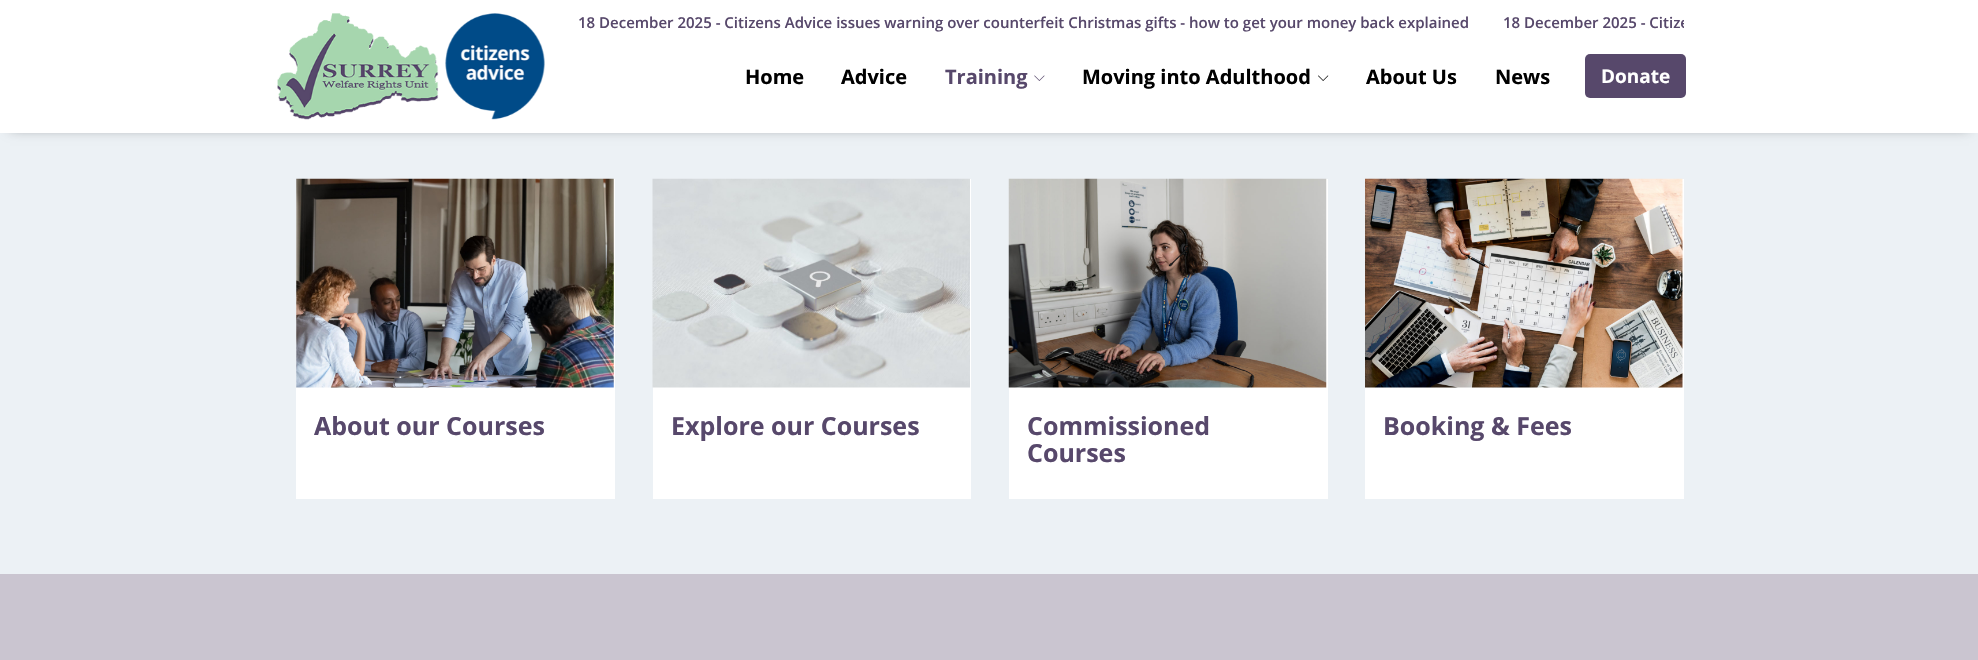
void draw(SkCanvas* canvas) {
    SkPaint paint;
    paint.setAntiAlias(true);
    canvas->clear(0xFFECF1F5);
    paint.setColor(0x73000000);
    paint.setMaskFilter(SkMaskFilter::MakeBlur(kNormal_SkBlurStyle, 6));
    canvas->drawRect(SkRect::MakeXYWH(10, 15, 1959, 113), paint);
    paint.setMaskFilter(nullptr);
    paint.setColor(0xFFFFFFFF);
    canvas->drawRect(SkRect::MakeXYWH(0, 0, 1978, 133), paint);
    canvas->drawImageRect(SkImages::DeferredFromEncodedData(SkData::MakeFromFileName("img1.png")), SkRect::MakeXYWH(277, 13, 268, 107), SkSamplingOptions());
    SkFont font1(fontMgr->matchFamilyStyle("Open Sans", SkFontStyle(600, SkFontStyle::kNormal_Width, SkFontStyle::kUpright_Slant)), 15);
    font1.setSubpixel(true);
    paint.setColor(0xFF57486B);
    canvas->drawString("18 December 2025 - Citizens Advice issues warning over counterfeit Christmas gifts - how to get your money back explained", 578, 28, font1, paint);
    canvas->save();
    canvas->clipRect(SkRect::MakeXYWH(548, 0, 1136, 45));
    canvas->drawString("18 December 2025 - Citize", 1503, 28, font1, paint);
    canvas->restore();
    SkFont font2(fontMgr->matchFamilyStyle("Open Sans", SkFontStyle::Bold()), 20);
    font2.setSubpixel(true);
    paint.setColor(0xFF000000);
    canvas->drawString("Home", 745, 84, font2, paint);
    canvas->drawString("Advice", 841, 84, font2, paint);
    paint.setColor(0xFF57486B);
    canvas->drawString("Training", 945, 84, font2, paint);
    canvas->drawImageRect(SkImages::DeferredFromEncodedData(SkData::MakeFromFileName("img2.png")), SkRect::MakeXYWH(1034, 75, 11, 6), SkSamplingOptions());
    paint.setColor(0xFF000000);
    canvas->drawString("Moving into Adulthood", 1082, 84, font2, paint);
    canvas->drawImageRect(SkImages::DeferredFromEncodedData(SkData::MakeFromFileName("img3.png")), SkRect::MakeXYWH(1318, 75, 11, 6), SkSamplingOptions());
    canvas->drawString("About Us", 1366, 84, font2, paint);
    canvas->drawString("News", 1495, 84, font2, paint);
    paint.setColor(0xFF57486B);
    canvas->drawRoundRect(SkRect::MakeXYWH(1585, 54, 101, 44), 5, 5, paint);
    SkFont font3(fontMgr->matchFamilyStyle("Open Sans", SkFontStyle::Bold()), 19);
    font3.setSubpixel(true);
    paint.setColor(0xFFFFFFFF);
    canvas->drawString("Donate", 1601, 83, font3, paint);
    canvas->drawRect(SkRect::MakeXYWH(296, 179, 319, 320), paint);
    canvas->drawImageRect(SkImages::DeferredFromEncodedData(SkData::MakeFromFileName("img4.png")), SkRect::MakeXYWH(296, 178, 318, 210), SkSamplingOptions());
    SkFont font4(fontMgr->matchFamilyStyle("Open Sans", SkFontStyle::Bold()), 25);
    font4.setSubpixel(true);
    paint.setColor(0xFF57486B);
    canvas->drawString("About our Courses", 314, 435, font4, paint);
    paint.setColor(0xFFFFFFFF);
    canvas->drawRect(SkRect::MakeXYWH(653, 179, 318, 320), paint);
    canvas->drawImageRect(SkImages::DeferredFromEncodedData(SkData::MakeFromFileName("img5.png")), SkRect::MakeXYWH(652, 178, 318, 210), SkSamplingOptions());
    paint.setColor(0xFF57486B);
    canvas->drawString("Explore our Courses", 671, 435, font4, paint);
    paint.setColor(0xFFFFFFFF);
    canvas->drawRect(SkRect::MakeXYWH(1009, 179, 319, 320), paint);
    canvas->drawImageRect(SkImages::DeferredFromEncodedData(SkData::MakeFromFileName("img6.png")), SkRect::MakeXYWH(1008, 178, 319, 210), SkSamplingOptions());
    paint.setColor(0xFF57486B);
    canvas->drawString("Commissioned", 1027, 435, font4, paint);
    canvas->drawString("Courses", 1027, 462, font4, paint);
    paint.setColor(0xFFFFFFFF);
    canvas->drawRect(SkRect::MakeXYWH(1365, 179, 319, 320), paint);
    canvas->drawImageRect(SkImages::DeferredFromEncodedData(SkData::MakeFromFileName("img7.png")), SkRect::MakeXYWH(1365, 178, 318, 210), SkSamplingOptions());
    paint.setColor(0xFF57486B);
    canvas->drawString("Booking & Fees", 1383, 435, font4, paint);
    paint.setColor(0xFFCAC5D0);
    canvas->drawRect(SkRect::MakeXYWH(0, 574, 1978, 86), paint);
}
